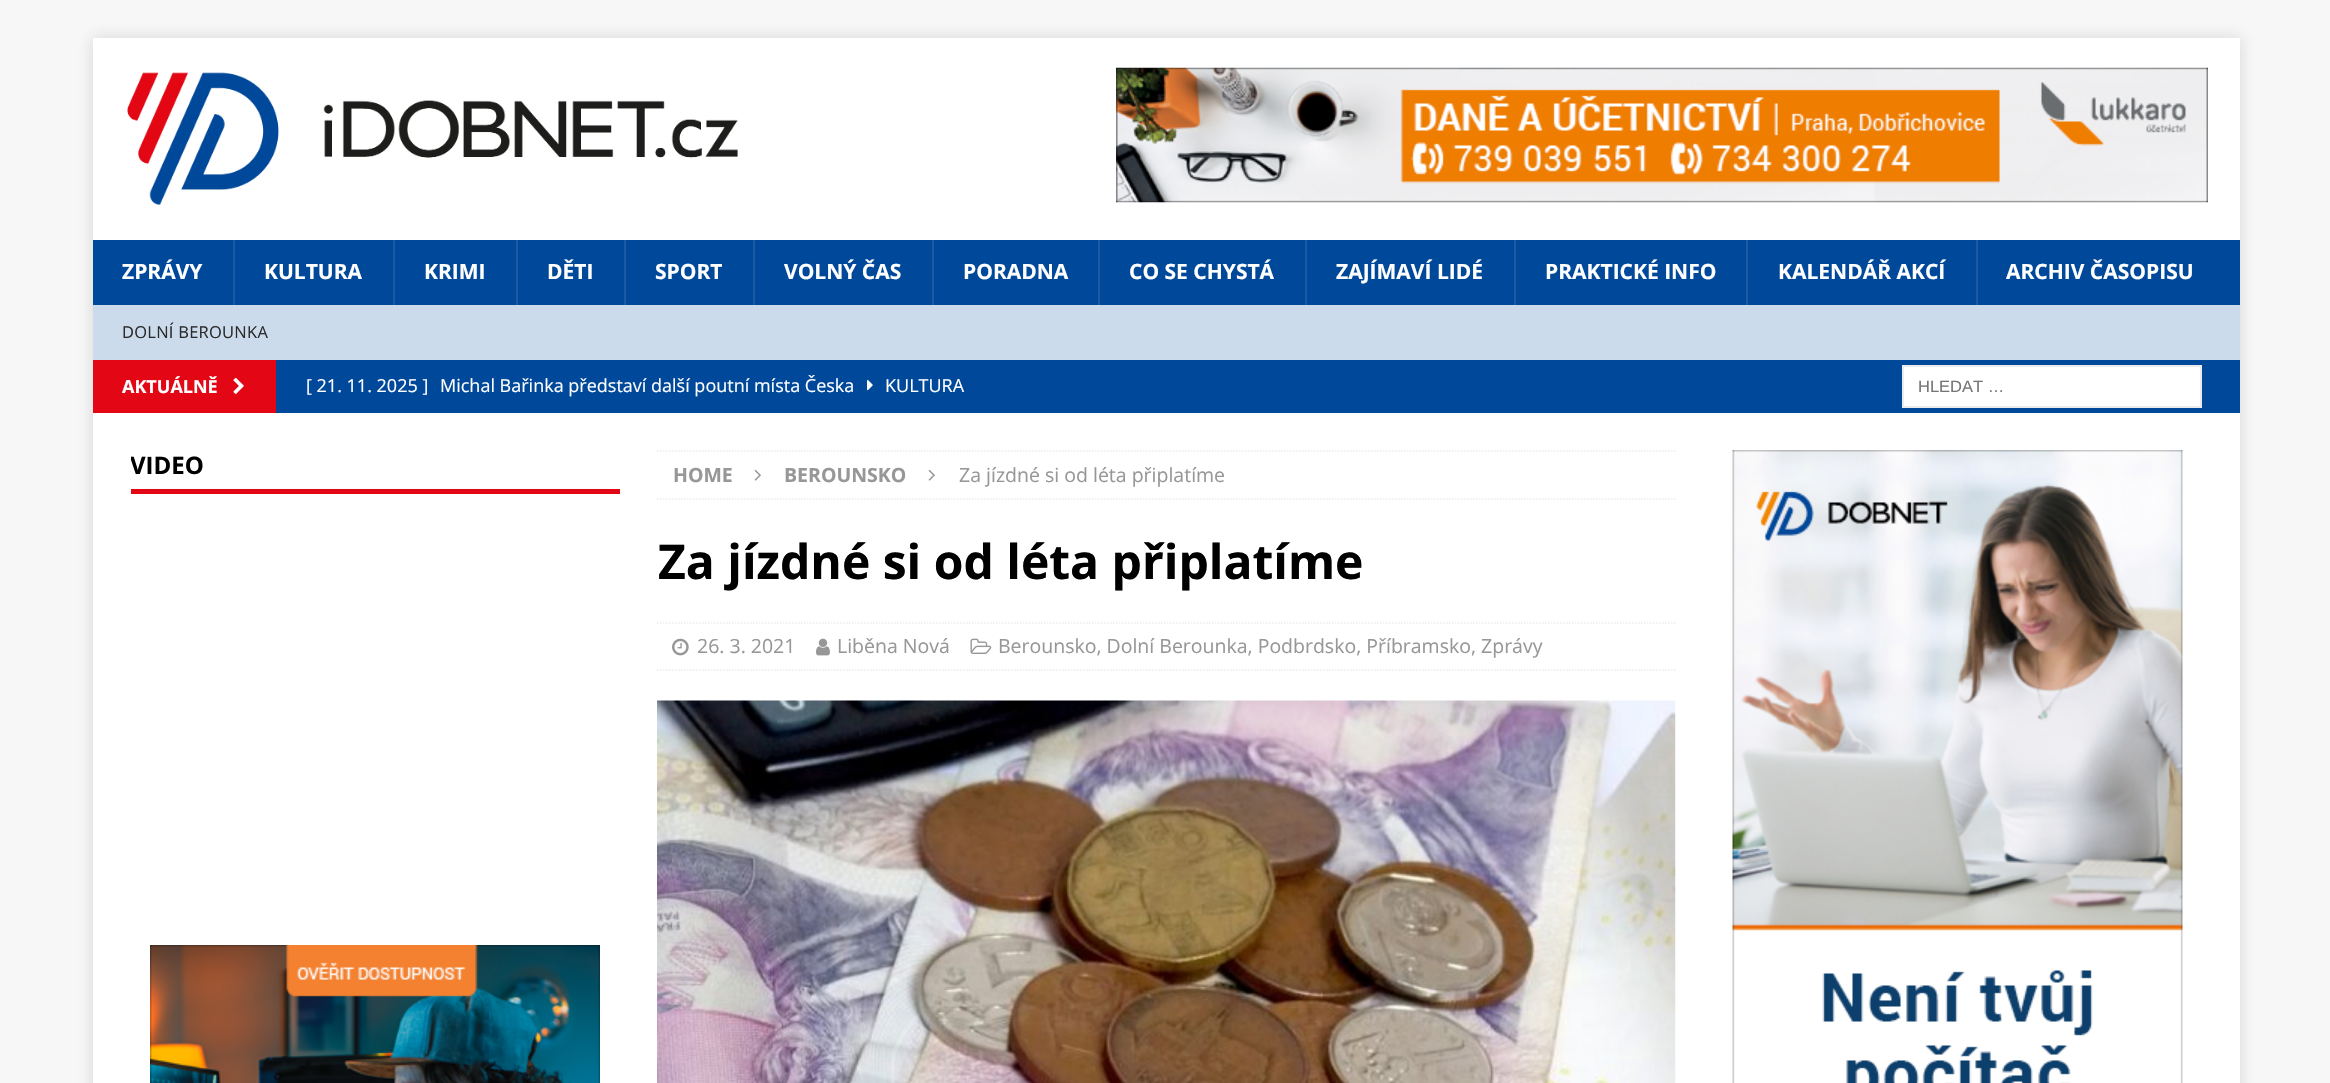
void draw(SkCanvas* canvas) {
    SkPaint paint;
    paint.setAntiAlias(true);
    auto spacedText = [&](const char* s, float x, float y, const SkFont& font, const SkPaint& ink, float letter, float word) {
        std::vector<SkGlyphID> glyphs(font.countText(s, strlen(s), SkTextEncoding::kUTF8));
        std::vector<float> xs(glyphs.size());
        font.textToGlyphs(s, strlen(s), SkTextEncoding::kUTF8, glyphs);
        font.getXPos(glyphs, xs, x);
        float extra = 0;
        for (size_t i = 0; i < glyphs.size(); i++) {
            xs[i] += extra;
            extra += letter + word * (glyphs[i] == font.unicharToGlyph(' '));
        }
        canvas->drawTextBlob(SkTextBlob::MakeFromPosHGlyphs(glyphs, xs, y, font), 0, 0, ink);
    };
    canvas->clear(0xFFF7F7F7);
    paint.setColor(0x2B323232);
    paint.setMaskFilter(SkMaskFilter::MakeBlur(kNormal_SkBlurStyle, 7.5f));
    canvas->drawRect(SkRect::MakeXYWH(93, 38, 2147, 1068), paint);
    paint.setMaskFilter(nullptr);
    paint.setColor(0xFFFFFFFF);
    canvas->drawRect(SkRect::MakeXYWH(93, 38, 2147, 202), paint);
    canvas->drawImageRect(SkImages::DeferredFromEncodedData(SkData::MakeFromFileName("img1.png")), SkRect::MakeXYWH(127, 72, 611, 133), SkSamplingOptions());
    canvas->drawImageRect(SkImages::DeferredFromEncodedData(SkData::MakeFromFileName("img2.png")), SkRect::MakeXYWH(1116, 67, 1092, 136), SkSamplingOptions());
    paint.setColor(0xFF004899);
    canvas->drawRect(SkRect::MakeXYWH(93, 240, 2147, 65), paint);
    SkFont font1(fontMgr->matchFamilyStyle("Open Sans", SkFontStyle::Bold()), 21);
    font1.setSubpixel(true);
    paint.setColor(0xFFFFFFFF);
    canvas->drawString("ZPRÁVY", 122, 279, font1, paint);
    paint.setColor(0xFF1A5AA3);
    canvas->drawRect(SkRect::MakeXYWH(233, 240, 2, 65), paint);
    paint.setColor(0xFFFFFFFF);
    canvas->drawString("KULTURA", 264, 279, font1, paint);
    paint.setColor(0xFF1A5AA3);
    canvas->drawRect(SkRect::MakeXYWH(393, 240, 2, 65), paint);
    paint.setColor(0xFFFFFFFF);
    canvas->drawString("KRIMI", 424, 279, font1, paint);
    paint.setColor(0xFF1A5AA3);
    canvas->drawRect(SkRect::MakeXYWH(516, 240, 2, 65), paint);
    paint.setColor(0xFFFFFFFF);
    canvas->drawString("DĚTI", 547, 279, font1, paint);
    paint.setColor(0xFF1A5AA3);
    canvas->drawRect(SkRect::MakeXYWH(624, 240, 2, 65), paint);
    paint.setColor(0xFFFFFFFF);
    canvas->drawString("SPORT", 655, 279, font1, paint);
    paint.setColor(0xFF1A5AA3);
    canvas->drawRect(SkRect::MakeXYWH(753, 240, 2, 65), paint);
    paint.setColor(0xFFFFFFFF);
    canvas->drawString("VOLNÝ ČAS", 784, 279, font1, paint);
    paint.setColor(0xFF1A5AA3);
    canvas->drawRect(SkRect::MakeXYWH(932, 240, 2, 65), paint);
    paint.setColor(0xFFFFFFFF);
    canvas->drawString("PORADNA", 963, 279, font1, paint);
    paint.setColor(0xFF1A5AA3);
    canvas->drawRect(SkRect::MakeXYWH(1098, 240, 2, 65), paint);
    paint.setColor(0xFFFFFFFF);
    canvas->drawString("CO SE CHYSTÁ", 1129, 279, font1, paint);
    paint.setColor(0xFF1A5AA3);
    canvas->drawRect(SkRect::MakeXYWH(1305, 240, 2, 65), paint);
    paint.setColor(0xFFFFFFFF);
    canvas->drawString("ZAJÍMAVÍ LIDÉ", 1336, 279, font1, paint);
    paint.setColor(0xFF1A5AA3);
    canvas->drawRect(SkRect::MakeXYWH(1514, 240, 2, 65), paint);
    paint.setColor(0xFFFFFFFF);
    canvas->drawString("PRAKTICKÉ INFO", 1545, 279, font1, paint);
    paint.setColor(0xFF1A5AA3);
    canvas->drawRect(SkRect::MakeXYWH(1746, 240, 2, 65), paint);
    paint.setColor(0xFFFFFFFF);
    canvas->drawString("KALENDÁŘ AKCÍ", 1778, 279, font1, paint);
    paint.setColor(0xFF1A5AA3);
    canvas->drawRect(SkRect::MakeXYWH(1976, 240, 2, 65), paint);
    paint.setColor(0xFFFFFFFF);
    canvas->drawString("ARCHIV ČASOPISU", 2006, 279, font1, paint);
    paint.setColor(0xFFCCDBEB);
    canvas->drawRect(SkRect::MakeXYWH(93, 305, 2147, 55), paint);
    SkFont font2(fontMgr->matchFamilyStyle("Open Sans", SkFontStyle::Normal()), 16.5f);
    font2.setSubpixel(true);
    paint.setColor(0xFF2A2A2A);
    spacedText("DOLNÍ BEROUNKA", 122, 338, font2, paint, 0.25f, 0);
    paint.setColor(0xFF004899);
    canvas->drawRect(SkRect::MakeXYWH(276, 360, 1964, 53), paint);
    paint.setColor(0xFFE30615);
    canvas->drawRect(SkRect::MakeXYWH(93, 360, 183, 53), paint);
    SkFont font3(fontMgr->matchFamilyStyle("Open Sans", SkFontStyle::Bold()), 18);
    font3.setSubpixel(true);
    paint.setColor(0xFFFFFFFF);
    canvas->drawString("AKTUÁLNĚ", 122, 393, font3, paint);
    canvas->drawImageRect(SkImages::DeferredFromEncodedData(SkData::MakeFromFileName("img3.png")), SkRect::MakeXYWH(233, 377, 11, 17), SkSamplingOptions());
    SkFont font4(fontMgr->matchFamilyStyle("Open Sans", SkFontStyle::Normal()), 18);
    font4.setSubpixel(true);
    canvas->drawString("[ 21. 11. 2025 ]", 306, 392, font4, paint);
    canvas->drawString("Michal Bařinka představí další poutní místa Česka", 440, 392, font4, paint);
    canvas->drawImageRect(SkImages::DeferredFromEncodedData(SkData::MakeFromFileName("img4.png")), SkRect::MakeXYWH(867, 380, 6, 11), SkSamplingOptions());
    canvas->drawString("KULTURA", 885, 392, font4, paint);
    canvas->drawRect(SkRect::MakeXYWH(1903, 366, 298, 41), paint);
    paint.setStyle(SkPaint::kStroke_Style);
    paint.setStrokeWidth(2);
    paint.setColor(0xFFEBEBEB);
    canvas->drawRect(SkRect::MakeXYWH(1903, 366, 298, 41), paint);
    SkFont font5(fontMgr->matchFamilyStyle("Liberation Sans", SkFontStyle::Normal()), 16.5f);
    font5.setSubpixel(true);
    paint.setStyle(SkPaint::kFill_Style);
    paint.setColor(0xFF757575);
    canvas->drawString("HLEDAT …", 1918, 392, font5, paint);
    paint.setColor(0xFFFFFFFF);
    canvas->drawRect(SkRect::MakeXYWH(93, 413, 2147, 670), paint);
    paint.setColor(0xFFE30615);
    canvas->drawRect(SkRect::MakeXYWH(131, 489, 489, 5), paint);
    canvas->save();
    canvas->clipRect(SkRect::MakeXYWH(131, 450, 489, 458));
    SkFont font6(fontMgr->matchFamilyStyle("Open Sans", SkFontStyle::Bold()), 24);
    font6.setSubpixel(true);
    paint.setColor(0xFF000000);
    canvas->drawString("VIDEO", 130, 474, font6, paint);
    canvas->restore();
    canvas->drawImageRect(SkImages::DeferredFromEncodedData(SkData::MakeFromFileName("img5.png")), SkRect::MakeXYWH(150, 945, 450, 138), SkSamplingOptions());
    paint.setStyle(SkPaint::kStroke_Style);
    paint.setStrokeWidth(1.5f);
    paint.setColor(0xFFEBEBEB);
    paint.setPathEffect(SkDashPathEffect::Make({{1.5f, 1.5f}}, 0));
    canvas->drawPath(SkPathBuilder().moveTo(657, 451).lineTo(1675.5f, 451).detach(), paint);
    paint.setPathEffect(nullptr);
    paint.setPathEffect(SkDashPathEffect::Make({{1.5f, 1.5f}}, 0));
    canvas->drawPath(SkPathBuilder().moveTo(657, 499).lineTo(1675.5f, 499).detach(), paint);
    paint.setPathEffect(nullptr);
    SkFont font7(fontMgr->matchFamilyStyle("Open Sans", SkFontStyle::Bold()), 19.5f);
    font7.setSubpixel(true);
    paint.setStyle(SkPaint::kFill_Style);
    paint.setColor(0xFF979797);
    canvas->drawString("HOME", 673, 482, font7, paint);
    canvas->drawImageRect(SkImages::DeferredFromEncodedData(SkData::MakeFromFileName("img6.png")), SkRect::MakeXYWH(754, 469, 7, 12), SkSamplingOptions());
    canvas->drawString("BEROUNSKO", 784, 482, font7, paint);
    canvas->drawImageRect(SkImages::DeferredFromEncodedData(SkData::MakeFromFileName("img6.png")), SkRect::MakeXYWH(928, 469, 7, 12), SkSamplingOptions());
    SkFont font8(fontMgr->matchFamilyStyle("Open Sans", SkFontStyle::Normal()), 19.5f);
    font8.setSubpixel(true);
    canvas->drawString("Za jízdné si od léta připlatíme", 959, 482, font8, paint);
    SkFont font9(fontMgr->matchFamilyStyle("Open Sans", SkFontStyle::Bold()), 48);
    font9.setSubpixel(true);
    paint.setColor(0xFF000000);
    canvas->drawString("Za jízdné si od léta připlatíme", 658, 579, font9, paint);
    paint.setStyle(SkPaint::kStroke_Style);
    paint.setColor(0xFFEBEBEB);
    paint.setPathEffect(SkDashPathEffect::Make({{1.5f, 1.5f}}, 0));
    canvas->drawPath(SkPathBuilder().moveTo(657, 623).lineTo(1675.5f, 623).detach(), paint);
    paint.setPathEffect(nullptr);
    paint.setPathEffect(SkDashPathEffect::Make({{1.5f, 1.5f}}, 0));
    canvas->drawPath(SkPathBuilder().moveTo(657, 670).lineTo(1675.5f, 670).detach(), paint);
    paint.setPathEffect(nullptr);
    canvas->drawImageRect(SkImages::DeferredFromEncodedData(SkData::MakeFromFileName("img7.png")), SkRect::MakeXYWH(672, 638, 17, 18), SkSamplingOptions());
    paint.setStyle(SkPaint::kFill_Style);
    paint.setColor(0xFF979797);
    canvas->drawString("26. 3. 2021", 697, 653, font8, paint);
    canvas->drawImageRect(SkImages::DeferredFromEncodedData(SkData::MakeFromFileName("img8.png")), SkRect::MakeXYWH(816, 638, 14, 18), SkSamplingOptions());
    canvas->drawString("Liběna Nová", 837, 653, font8, paint);
    canvas->drawImageRect(SkImages::DeferredFromEncodedData(SkData::MakeFromFileName("img9.png")), SkRect::MakeXYWH(970, 638, 22, 16), SkSamplingOptions());
    canvas->drawString("Berounsko, Dolní Berounka, Podbrdsko, Příbramsko, Zprávy", 998, 653, font8, paint);
    canvas->drawImageRect(SkImages::DeferredFromEncodedData(SkData::MakeFromFileName("img10.png")), SkRect::MakeXYWH(657, 700, 1019, 383), SkSamplingOptions());
    canvas->drawImageRect(SkImages::DeferredFromEncodedData(SkData::MakeFromFileName("img11.png")), SkRect::MakeXYWH(1732, 450, 451, 633), SkSamplingOptions());
}
